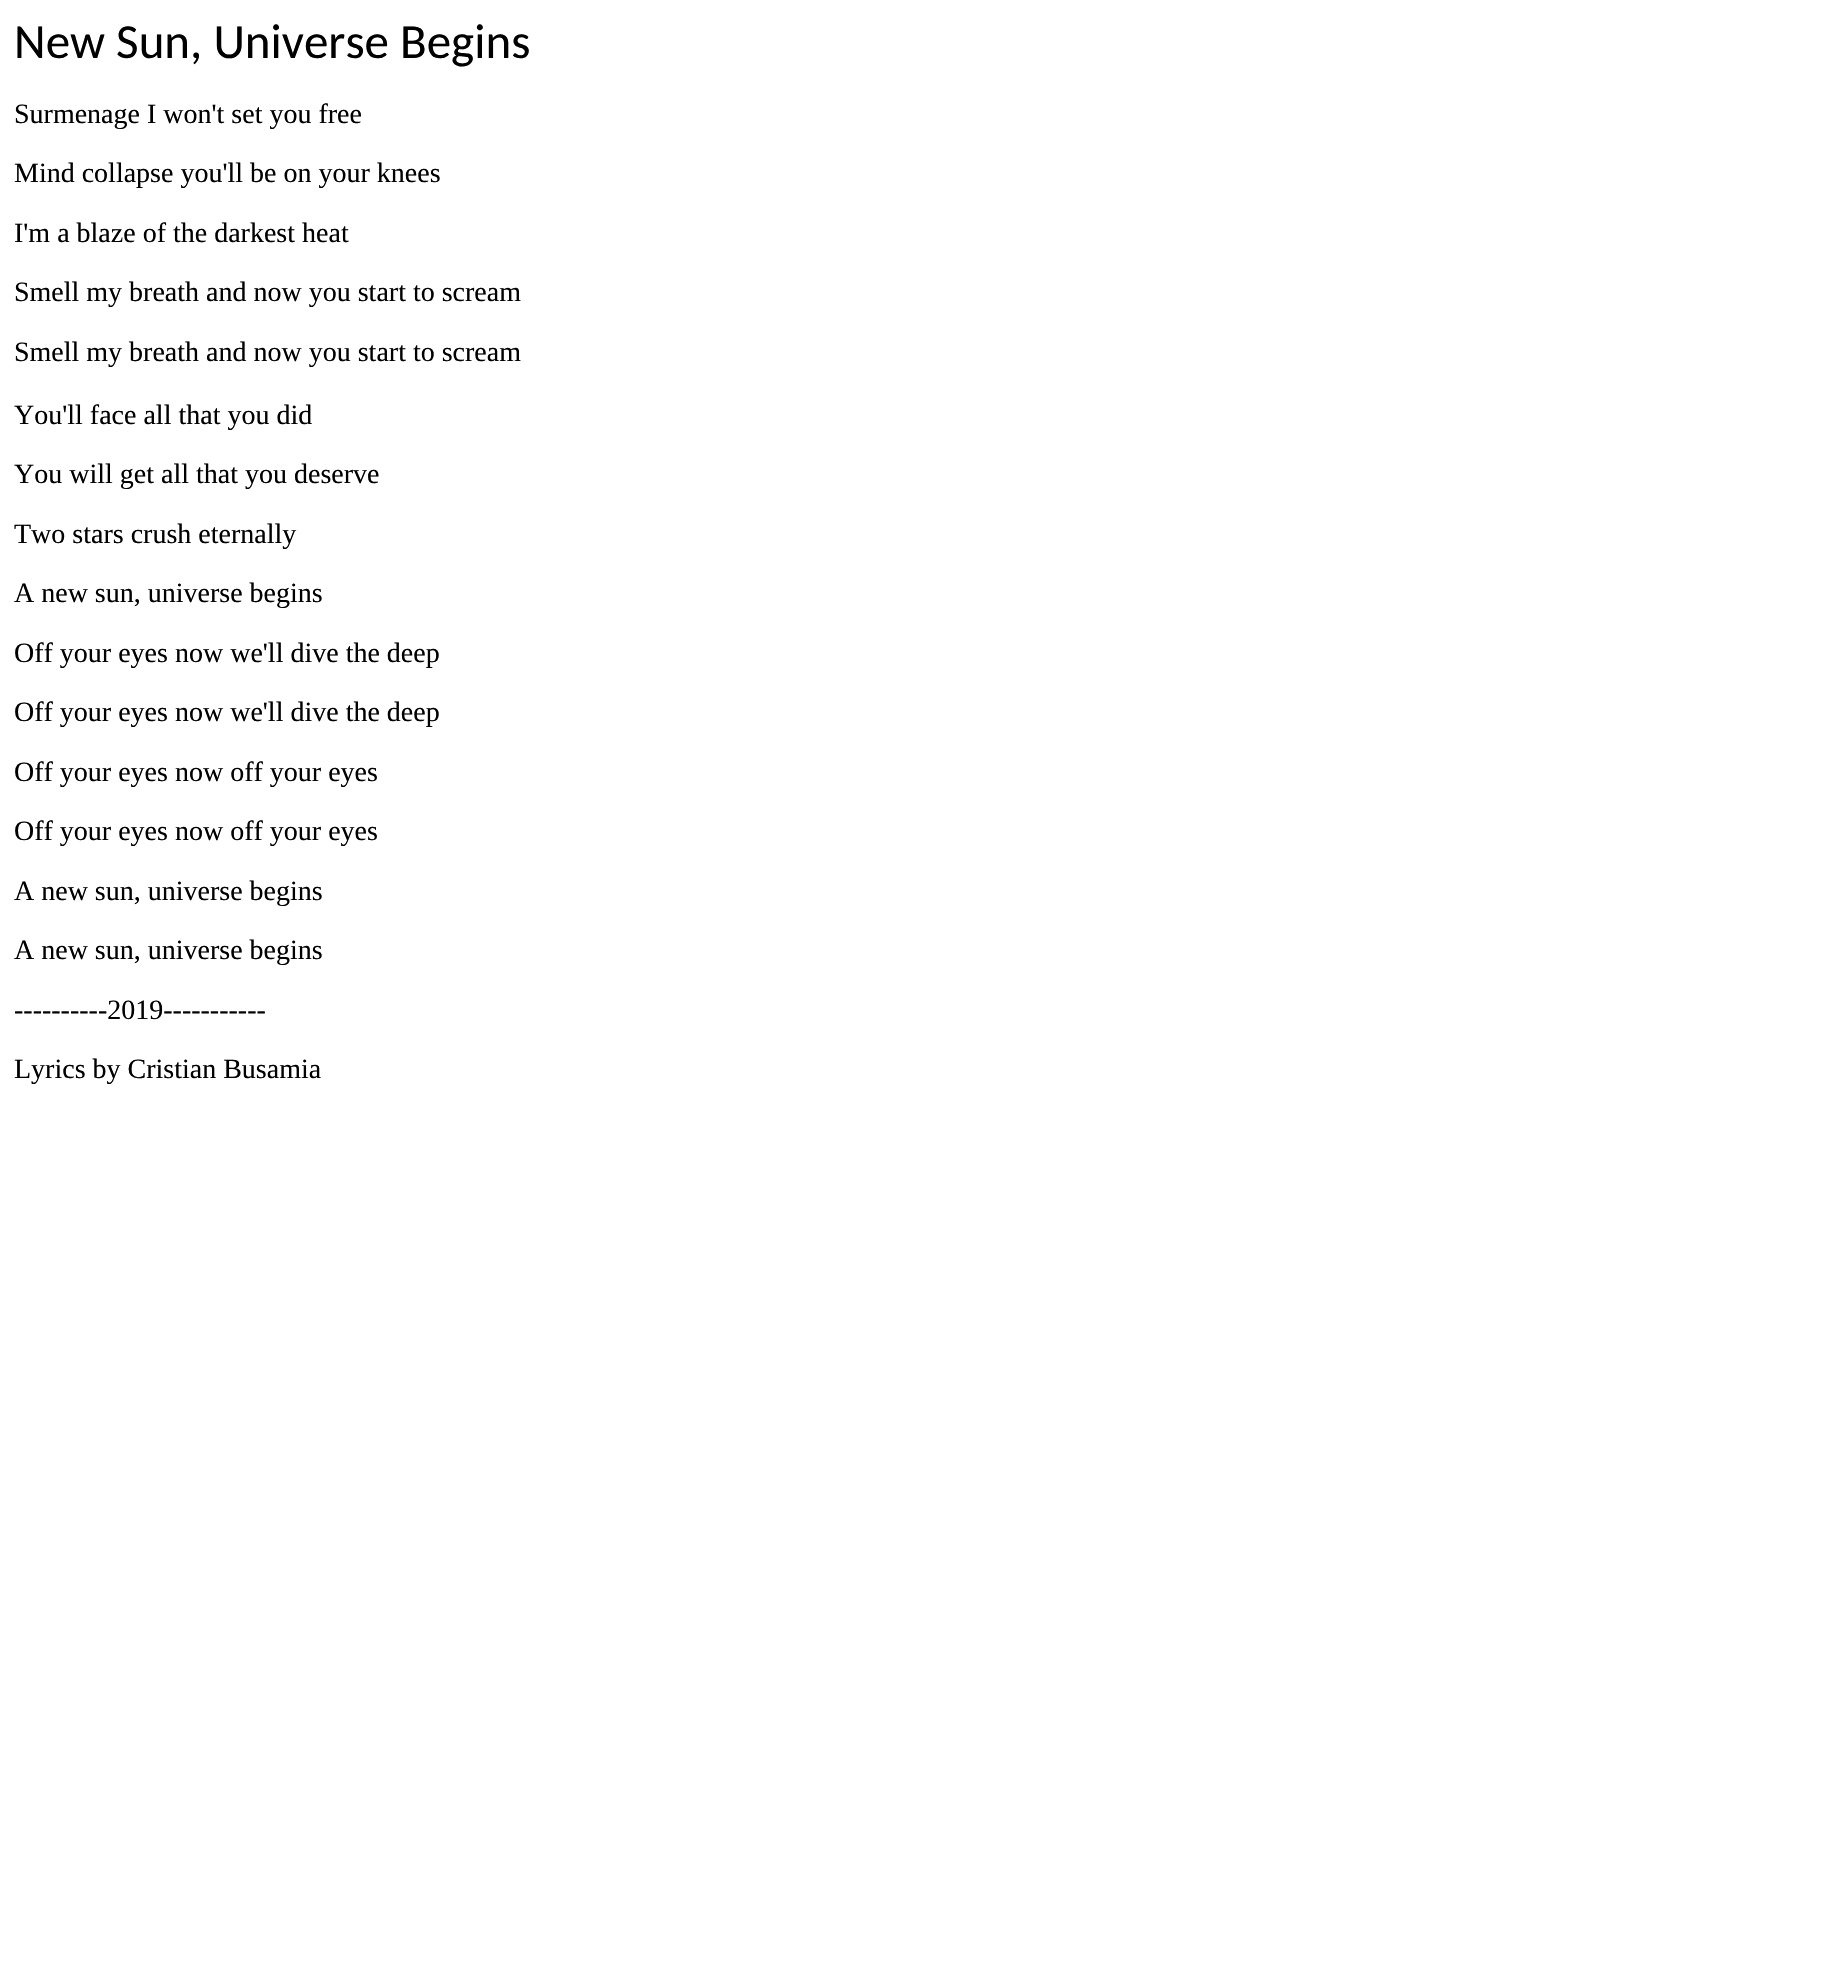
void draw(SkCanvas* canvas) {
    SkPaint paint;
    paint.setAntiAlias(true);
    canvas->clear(0xFFFFFFFF);
    SkFont font1(fontMgr->matchFamilyStyle("Carlito", SkFontStyle::Normal()), 49);
    font1.setSubpixel(true);
    paint.setColor(0xFF000000);
    canvas->drawString("New Sun, Universe Begins", 14, 58, font1, paint);
    SkFont font2(fontMgr->matchFamilyStyle("Liberation Serif", SkFontStyle::Normal()), 28);
    font2.setSubpixel(true);
    canvas->drawString("Surmenage I won't set you free", 14, 123, font2, paint);
    canvas->drawString("Mind collapse you'll be on your knees", 14, 182, font2, paint);
    canvas->drawString("I'm a blaze of the darkest heat", 14, 242, font2, paint);
    canvas->drawString("Smell my breath and now you start to scream", 14, 301, font2, paint);
    canvas->drawString("Smell my breath and now you start to scream", 14, 361, font2, paint);
    canvas->drawString("You'll face all that you did", 14, 424, font2, paint);
    canvas->drawString("You will get all that you deserve", 14, 483, font2, paint);
    canvas->drawString("Two stars crush eternally", 14, 543, font2, paint);
    canvas->drawString("A new sun, universe begins", 14, 602, font2, paint);
    canvas->drawString("Off your eyes now we'll dive the deep", 14, 662, font2, paint);
    canvas->drawString("Off your eyes now we'll dive the deep", 14, 721, font2, paint);
    canvas->drawString("Off your eyes now off your eyes", 14, 781, font2, paint);
    canvas->drawString("Off your eyes now off your eyes", 14, 840, font2, paint);
    canvas->drawString("A new sun, universe begins", 14, 900, font2, paint);
    canvas->drawString("A new sun, universe begins", 14, 959, font2, paint);
    canvas->drawString("----------2019-----------", 14, 1019, font2, paint);
    canvas->drawString("Lyrics by Cristian Busamia", 14, 1078, font2, paint);
}
